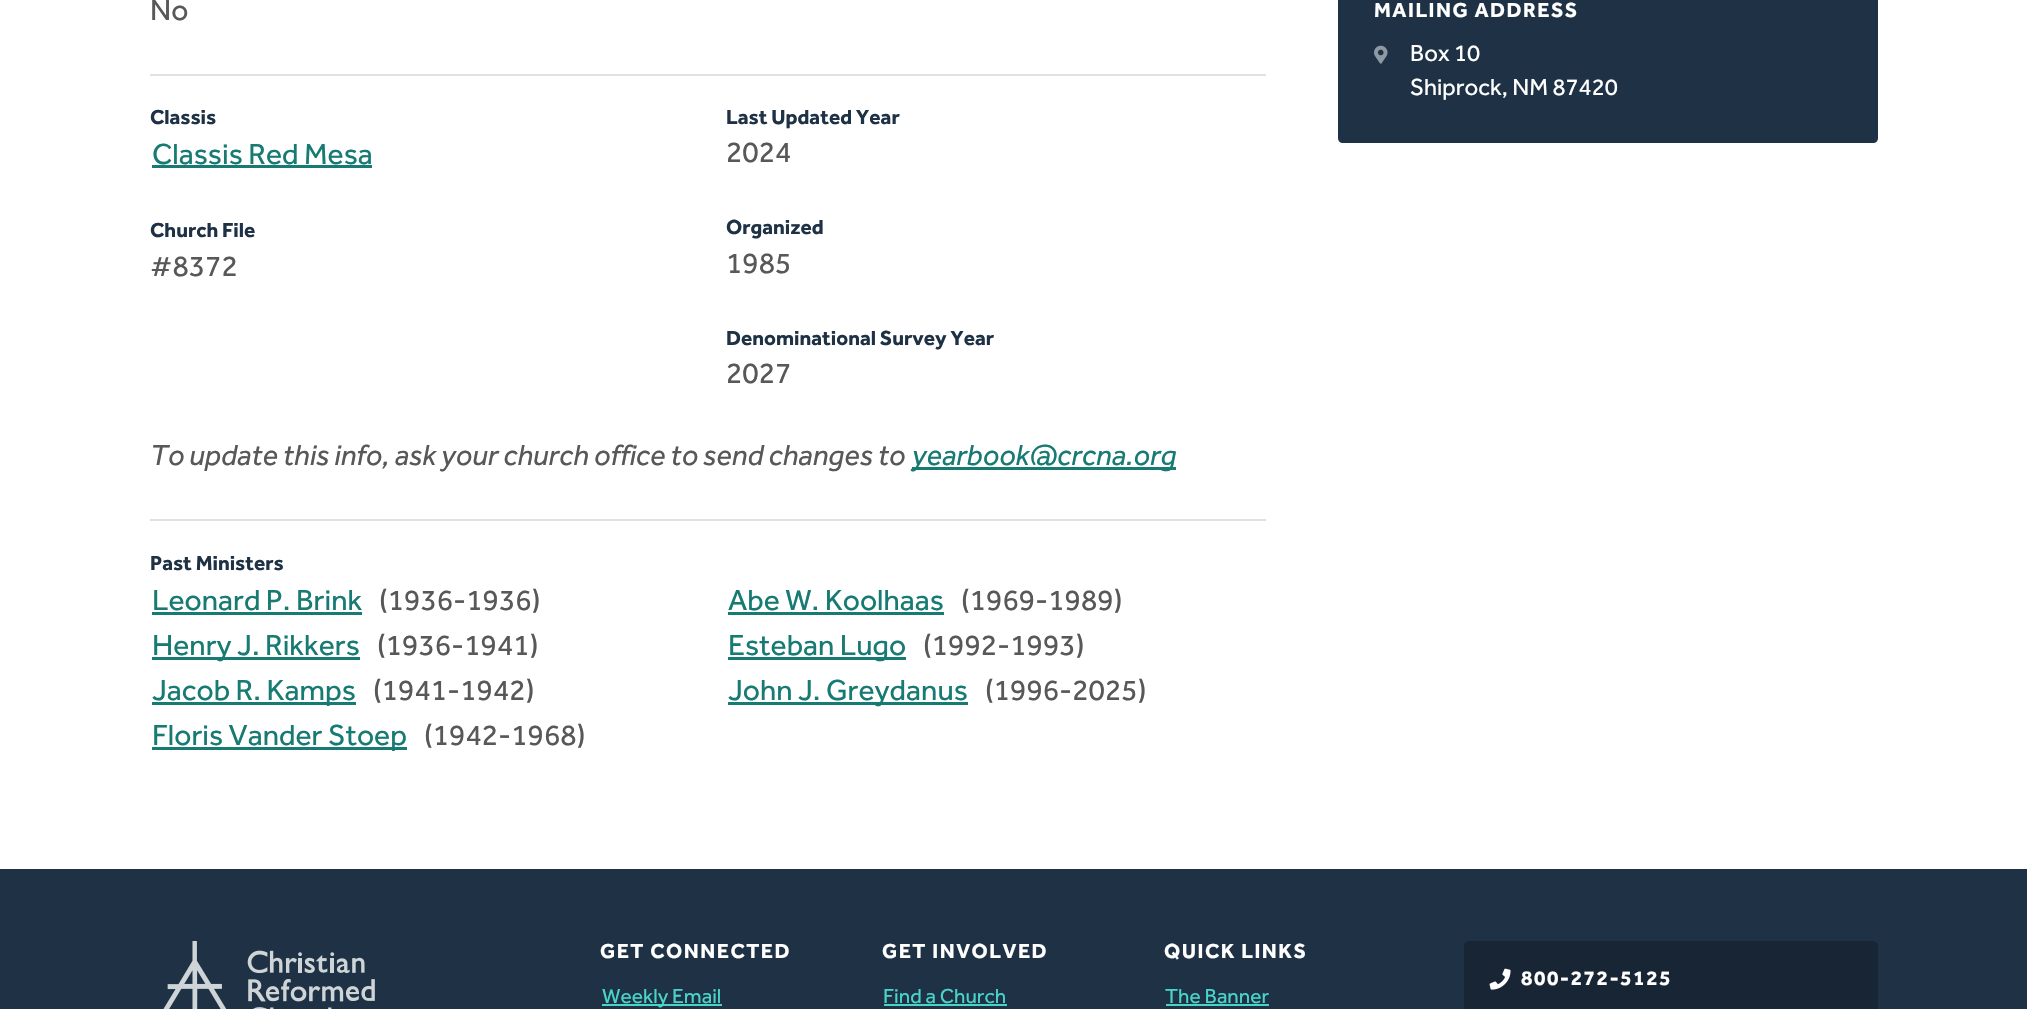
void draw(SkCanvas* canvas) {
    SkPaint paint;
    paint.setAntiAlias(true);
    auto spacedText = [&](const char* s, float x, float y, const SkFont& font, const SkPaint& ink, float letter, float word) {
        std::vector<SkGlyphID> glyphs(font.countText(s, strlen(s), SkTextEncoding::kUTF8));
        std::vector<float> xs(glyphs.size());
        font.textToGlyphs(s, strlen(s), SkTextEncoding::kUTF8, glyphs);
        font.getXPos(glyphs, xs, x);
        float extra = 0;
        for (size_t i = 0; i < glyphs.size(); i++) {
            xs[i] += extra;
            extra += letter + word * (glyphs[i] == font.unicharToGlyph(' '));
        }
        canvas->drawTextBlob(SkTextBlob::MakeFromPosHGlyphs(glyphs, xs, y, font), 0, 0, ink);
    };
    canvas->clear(0xFFFFFFFF);
    SkFont font1(fontMgr->matchFamilyStyle("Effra", SkFontStyle::Normal()), 30);
    font1.setSubpixel(true);
    paint.setColor(0xFF585858);
    canvas->drawString("No", 150, 20, font1, paint);
    paint.setColor(0xFFDEE2E3);
    canvas->drawRect(SkRect::MakeXYWH(150, 74, 1116, 2), paint);
    SkFont font2(fontMgr->matchFamilyStyle("Effra", SkFontStyle::Bold()), 21);
    font2.setSubpixel(true);
    paint.setColor(0xFF1E3145);
    canvas->drawString("Classis", 150, 124, font2, paint);
    paint.setColor(0xFF187B73);
    canvas->drawString("Classis Red Mesa", 152, 164, font1, paint);
    canvas->drawRect(SkRect::MakeXYWH(152, 165, 220, 3), paint);
    paint.setColor(0xFF1E3145);
    canvas->drawString("Last Updated Year", 726, 124, font2, paint);
    paint.setColor(0xFF585858);
    canvas->drawString("2024", 726, 162, font1, paint);
    paint.setColor(0xFF1E3145);
    canvas->drawString("Church File", 150, 237, font2, paint);
    paint.setColor(0xFF585858);
    canvas->drawString("#8372", 150, 276, font1, paint);
    paint.setColor(0xFF1E3145);
    canvas->drawString("Organized", 726, 234, font2, paint);
    paint.setColor(0xFF585858);
    canvas->drawString("1985", 726, 273, font1, paint);
    paint.setColor(0xFF1E3145);
    canvas->drawString("Denominational Survey Year", 726, 345, font2, paint);
    paint.setColor(0xFF585858);
    canvas->drawString("2027", 726, 383, font1, paint);
    SkFont font3(fontMgr->matchFamilyStyle("Effra", SkFontStyle::Italic()), 30);
    font3.setSubpixel(true);
    canvas->drawString("To update this info, ask your church office to send changes to", 150, 465, font3, paint);
    paint.setColor(0xFF187B73);
    canvas->drawRect(SkRect::MakeXYWH(912, 467, 264, 3), paint);
    canvas->drawString("yearbook@crcna.org", 912, 465, font3, paint);
    paint.setColor(0xFFDEE2E3);
    canvas->drawRect(SkRect::MakeXYWH(150, 519, 1116, 2), paint);
    paint.setColor(0xFF1E3145);
    canvas->drawString("Past Ministers", 150, 570, font2, paint);
    paint.setColor(0xFF187B73);
    canvas->drawString("Leonard P. Brink", 152, 610, font1, paint);
    canvas->drawRect(SkRect::MakeXYWH(152, 612, 210, 3), paint);
    paint.setColor(0xFF585858);
    canvas->drawString("(1936-1936)", 379, 610, font1, paint);
    paint.setColor(0xFF187B73);
    canvas->drawString("Abe W. Koolhaas", 728, 610, font1, paint);
    canvas->drawRect(SkRect::MakeXYWH(728, 612, 216, 3), paint);
    paint.setColor(0xFF585858);
    canvas->drawString("(1969-1989)", 961, 610, font1, paint);
    paint.setColor(0xFF187B73);
    canvas->drawRect(SkRect::MakeXYWH(152, 657, 208, 3), paint);
    canvas->drawString("Henry J. Rikkers", 152, 655, font1, paint);
    paint.setColor(0xFF585858);
    canvas->drawString("(1936-1941)", 377, 655, font1, paint);
    paint.setColor(0xFF187B73);
    canvas->drawRect(SkRect::MakeXYWH(728, 657, 178, 3), paint);
    canvas->drawString("Esteban Lugo", 728, 655, font1, paint);
    paint.setColor(0xFF585858);
    canvas->drawString("(1992-1993)", 923, 655, font1, paint);
    paint.setColor(0xFF187B73);
    canvas->drawRect(SkRect::MakeXYWH(152, 702, 204, 3), paint);
    canvas->drawString("Jacob R. Kamps", 152, 700, font1, paint);
    paint.setColor(0xFF585858);
    canvas->drawString("(1941-1942)", 373, 700, font1, paint);
    paint.setColor(0xFF187B73);
    canvas->drawRect(SkRect::MakeXYWH(728, 702, 240, 3), paint);
    canvas->drawString("John J. Greydanus", 728, 700, font1, paint);
    paint.setColor(0xFF585858);
    canvas->drawString("(1996-2025)", 985, 700, font1, paint);
    paint.setColor(0xFF187B73);
    canvas->drawRect(SkRect::MakeXYWH(152, 747, 255, 3), paint);
    canvas->drawString("Floris Vander Stoep", 152, 745, font1, paint);
    paint.setColor(0xFF585858);
    canvas->drawString("(1942-1968)", 424, 745, font1, paint);
    paint.setColor(0xFF1E3145);
    canvas->drawPath(SkPathBuilder().moveTo(1338, -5).lineTo(1878, -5).lineTo(1878, 138).cubicTo(1878, 141, 1876, 143, 1873, 143).lineTo(1343, 143).cubicTo(1340, 143, 1338, 141, 1338, 138).close().detach(), paint);
    paint.setColor(0xFFFFFFFF);
    spacedText("MAILING ADDRESS", 1374, 17, font2, paint, 1.5f, 0);
    canvas->drawImageRect(SkImages::DeferredFromEncodedData(SkData::MakeFromFileName("img1.png")), SkRect::MakeXYWH(1374, 45, 14, 19), SkSamplingOptions());
    SkFont font4(fontMgr->matchFamilyStyle("Effra", SkFontStyle::Normal()), 24);
    font4.setSubpixel(true);
    canvas->drawString("Box 10", 1410, 61, font4, paint);
    canvas->drawString("Shiprock, NM 87420", 1410, 95, font4, paint);
    paint.setColor(0xFF1E3145);
    canvas->drawRect(SkRect::MakeXYWH(0, 869, 2027, 140), paint);
    canvas->drawImageRect(SkImages::DeferredFromEncodedData(SkData::MakeFromFileName("img2.png")), SkRect::MakeXYWH(163, 941, 212, 68), SkSamplingOptions());
    paint.setColor(0xFFFFFFFF);
    spacedText("GET CONNECTED", 600, 958, font2, paint, 1.5f, 0);
    paint.setColor(0xFF49D4C9);
    canvas->drawRect(SkRect::MakeXYWH(602, 1004, 120, 2), paint);
    SkFont font5(fontMgr->matchFamilyStyle("Effra", SkFontStyle::Normal()), 21);
    font5.setSubpixel(true);
    canvas->drawString("Weekly Email", 602, 1003, font5, paint);
    paint.setColor(0xFFFFFFFF);
    spacedText("GET INVOLVED", 882, 958, font2, paint, 1.5f, 0);
    paint.setColor(0xFF49D4C9);
    canvas->drawString("Find a Church", 883, 1003, font5, paint);
    canvas->drawRect(SkRect::MakeXYWH(884, 1004, 123, 2), paint);
    paint.setColor(0xFFFFFFFF);
    spacedText("QUICK LINKS", 1164, 958, font2, paint, 1.5f, 0);
    paint.setColor(0xFF49D4C9);
    canvas->drawString("The Banner", 1165, 1003, font5, paint);
    canvas->drawRect(SkRect::MakeXYWH(1166, 1004, 103, 2), paint);
    paint.setColor(0xFF172534);
    canvas->drawRoundRect(SkRect::MakeXYWH(1464, 941, 414, 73), 5, 5, paint);
    canvas->drawImageRect(SkImages::DeferredFromEncodedData(SkData::MakeFromFileName("img3.png")), SkRect::MakeXYWH(1489, 968, 22, 22), SkSamplingOptions());
    paint.setColor(0xFFFFFFFF);
    spacedText("800-272-5125", 1521, 985, font2, paint, 1.5f, 0);
}
